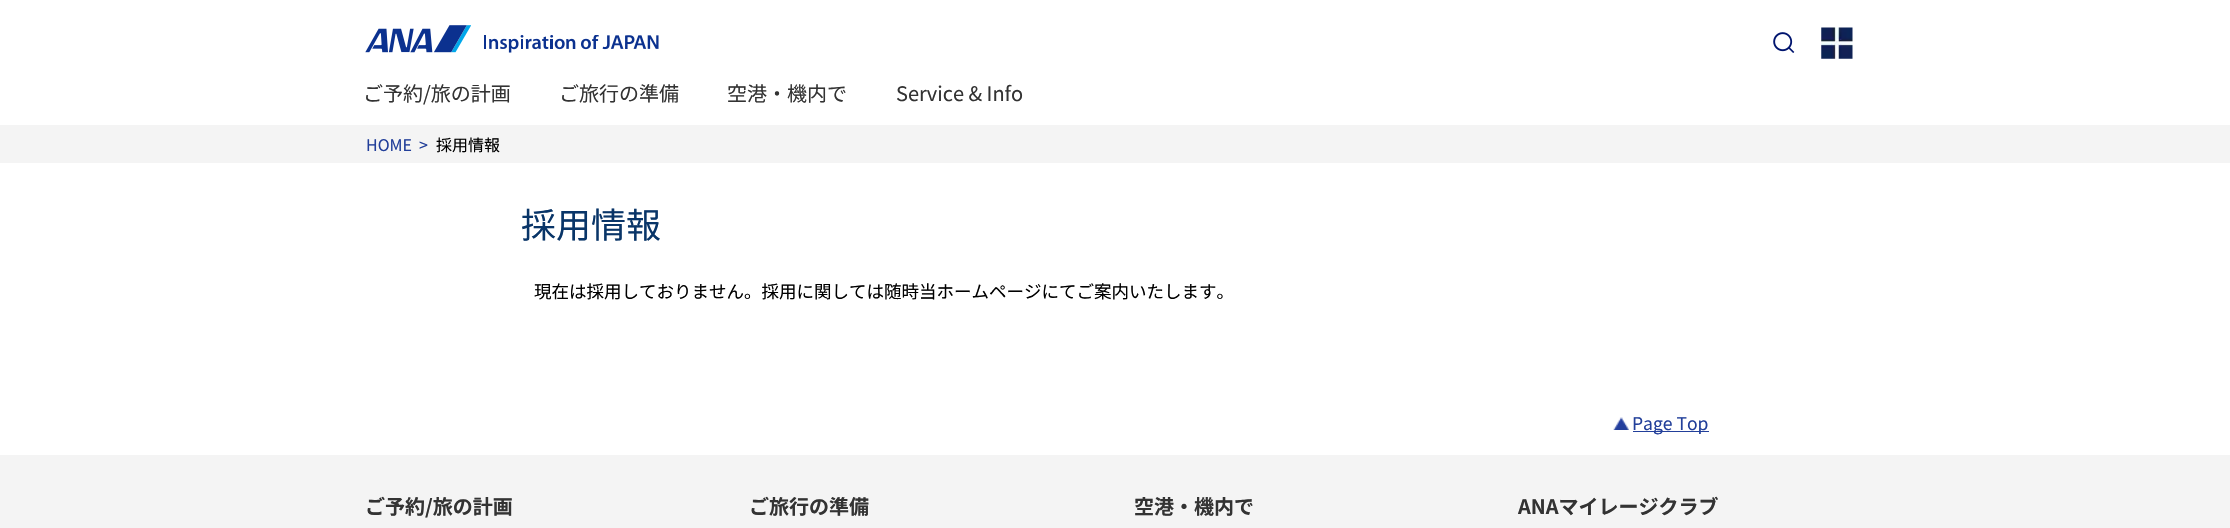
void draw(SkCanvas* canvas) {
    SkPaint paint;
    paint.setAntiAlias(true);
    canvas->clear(0xFFFFFFFF);
    canvas->drawImageRect(SkImages::DeferredFromEncodedData(SkData::MakeFromFileName("img1.png")), SkRect::MakeXYWH(365, 25, 106, 28), SkSamplingOptions());
    canvas->drawImageRect(SkImages::DeferredFromEncodedData(SkData::MakeFromFileName("img2.png")), SkRect::MakeXYWH(484, 35, 175, 18), SkSamplingOptions());
    canvas->drawImageRect(SkImages::DeferredFromEncodedData(SkData::MakeFromFileName("img3.png")), SkRect::MakeXYWH(1773, 32, 22, 21), SkSamplingOptions());
    canvas->drawImageRect(SkImages::DeferredFromEncodedData(SkData::MakeFromFileName("img4.png")), SkRect::MakeXYWH(1821, 27, 32, 32), SkSamplingOptions());
    SkFont font1(fontMgr->matchFamilyStyle("Noto Sans CJK JP", SkFontStyle::Normal()), 20);
    font1.setSubpixel(true);
    paint.setColor(0xFF333333);
    canvas->drawString("ご予約/旅の計画", 363, 101, font1, paint);
    canvas->drawString("ご旅行の準備", 559, 101, font1, paint);
    canvas->drawString("空港・機内で", 727, 101, font1, paint);
    canvas->drawString("Service & Info", 896, 101, font1, paint);
    paint.setColor(0xFFF4F4F4);
    canvas->drawRect(SkRect::MakeXYWH(0, 125, 2230, 38), paint);
    SkFont font2(fontMgr->matchFamilyStyle("Noto Sans CJK JP", SkFontStyle::Normal()), 16);
    font2.setSubpixel(true);
    paint.setColor(0xFF223F9A);
    canvas->drawString("HOME", 366, 151, font2, paint);
    canvas->drawString(">", 419, 151, font2, paint);
    paint.setColor(0xFF000000);
    canvas->drawString("採用情報", 436, 151, font2, paint);
    SkFont font3(fontMgr->matchFamilyStyle("Noto Sans CJK JP", SkFontStyle::Normal()), 35);
    font3.setSubpixel(true);
    paint.setColor(0xFF093568);
    canvas->drawString("採用情報", 521, 238, font3, paint);
    SkFont font4(fontMgr->matchFamilyStyle("Noto Sans CJK JP", SkFontStyle::Normal()), 17.5f);
    font4.setSubpixel(true);
    paint.setColor(0xFF000000);
    canvas->drawString("現在は採用しておりません。採用に関しては随時当ホームページにてご案内いたします。", 534, 298, font4, paint);
    canvas->drawImageRect(SkImages::DeferredFromEncodedData(SkData::MakeFromFileName("img5.png")), SkRect::MakeXYWH(1613, 417, 16, 13), SkSamplingOptions());
    paint.setColor(0xFF223F9A);
    canvas->drawRect(SkRect::MakeXYWH(1633, 431, 76, 1), paint);
    canvas->drawString("Page Top", 1632, 430, font4, paint);
    paint.setColor(0xFFF4F4F4);
    canvas->drawRect(SkRect::MakeXYWH(0, 455, 2230, 73), paint);
    SkFont font5(fontMgr->matchFamilyStyle("Noto Sans CJK JP", SkFontStyle::Bold()), 20);
    font5.setSubpixel(true);
    paint.setColor(0xFF333333);
    canvas->drawString("ご予約/旅の計画", 365, 514, font5, paint);
    canvas->drawString("ご旅行の準備", 749, 514, font5, paint);
    canvas->drawString("空港・機内で", 1134, 514, font5, paint);
    canvas->drawString("ANAマイレージクラブ", 1518, 514, font5, paint);
}
